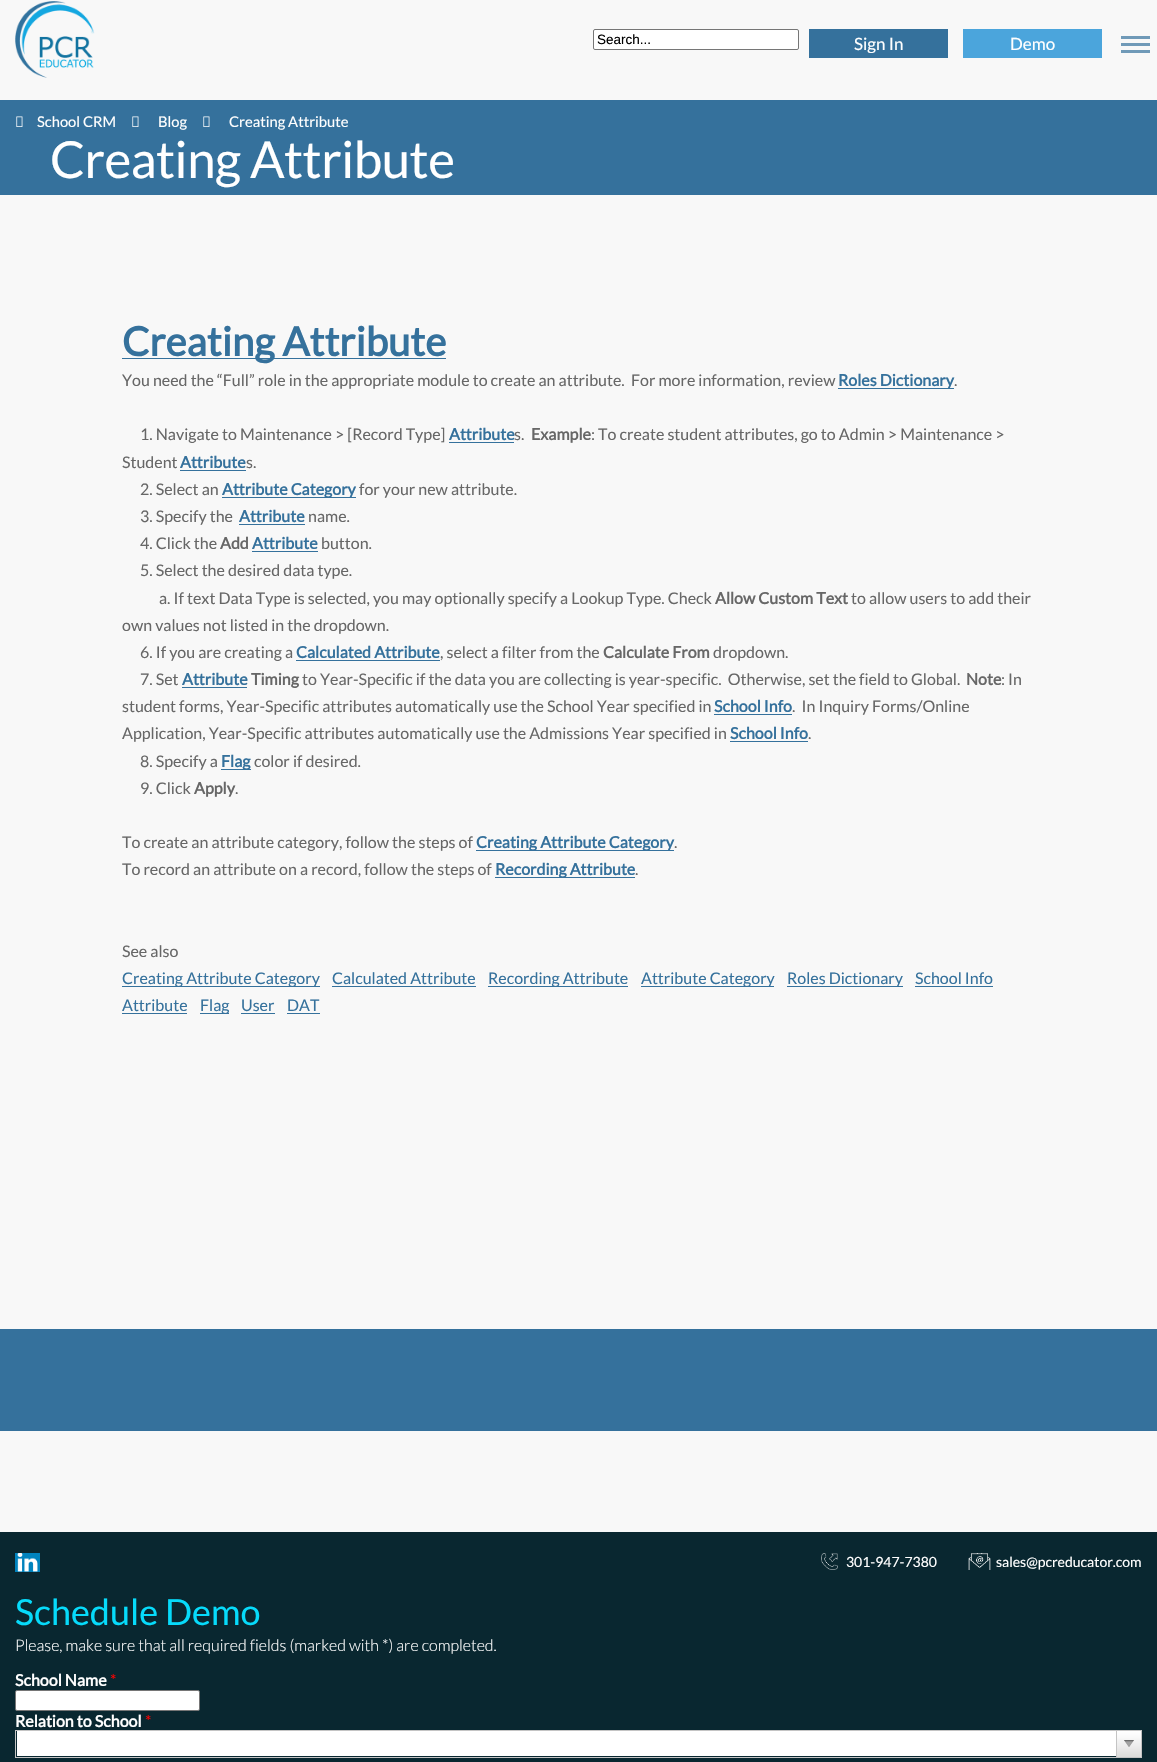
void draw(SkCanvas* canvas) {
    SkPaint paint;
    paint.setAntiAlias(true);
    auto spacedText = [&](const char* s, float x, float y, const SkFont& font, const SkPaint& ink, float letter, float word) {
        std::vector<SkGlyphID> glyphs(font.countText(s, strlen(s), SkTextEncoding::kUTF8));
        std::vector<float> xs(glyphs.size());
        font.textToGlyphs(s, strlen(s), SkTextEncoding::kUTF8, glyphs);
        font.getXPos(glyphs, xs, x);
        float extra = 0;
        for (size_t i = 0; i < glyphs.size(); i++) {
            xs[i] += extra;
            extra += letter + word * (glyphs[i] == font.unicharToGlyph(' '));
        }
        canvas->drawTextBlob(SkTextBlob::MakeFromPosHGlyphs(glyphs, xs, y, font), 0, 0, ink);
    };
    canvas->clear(0xFFF8F8F8);
    canvas->drawImageRect(SkImages::DeferredFromEncodedData(SkData::MakeFromFileName("img1.png")), SkRect::MakeXYWH(15, 1, 80, 77), SkSamplingOptions());
    paint.setColor(0xFFFFFFFF);
    canvas->drawRoundRect(SkRect::MakeXYWH(593.5f, 29.5f, 205, 20), 1.5f, 1.5f, paint);
    paint.setStyle(SkPaint::kStroke_Style);
    paint.setStrokeWidth(1);
    paint.setColor(0xFF767676);
    canvas->drawRoundRect(SkRect::MakeXYWH(593.5f, 29.5f, 205, 20), 1.5f, 1.5f, paint);
    SkFont font1(fontMgr->matchFamilyStyle("Liberation Sans", SkFontStyle::Normal()), 13.5f);
    font1.setSubpixel(true);
    paint.setStyle(SkPaint::kFill_Style);
    paint.setColor(0xFF000000);
    canvas->drawString("Search...", 597, 44, font1, paint);
    paint.setColor(0xFF35719C);
    canvas->drawRect(SkRect::MakeXYWH(809, 29, 139, 29), paint);
    SkFont font2(fontMgr->matchFamilyStyle("Lato", SkFontStyle::Normal()), 17);
    font2.setSubpixel(true);
    paint.setColor(0xFFFFFFFF);
    canvas->drawString("Sign In", 854, 50, font2, paint);
    paint.setColor(0xFF4BA5DC);
    canvas->drawRect(SkRect::MakeXYWH(963, 29, 139, 29), paint);
    paint.setColor(0xFFFFFFFF);
    canvas->drawString("Demo", 1010, 50, font2, paint);
    paint.setColor(0xFF709AB8);
    canvas->drawRect(SkRect::MakeXYWH(1121, 50, 29, 3), paint);
    canvas->drawRect(SkRect::MakeXYWH(1121, 43, 29, 3), paint);
    canvas->drawRect(SkRect::MakeXYWH(1121, 36, 29, 3), paint);
    paint.setColor(0xFF35719C);
    canvas->drawRect(SkRect::MakeXYWH(0, 100, 1157, 95), paint);
    canvas->drawImageRect(SkImages::DeferredFromEncodedData(SkData::MakeFromFileName("img2.png")), SkRect::MakeXYWH(16, 116, 7, 11), SkSamplingOptions());
    SkFont font3(fontMgr->matchFamilyStyle("Lato", SkFontStyle::Normal()), 14.75f);
    font3.setSubpixel(true);
    paint.setColor(0xFFFFFFFF);
    canvas->drawString("School CRM", 37, 127, font3, paint);
    canvas->drawImageRect(SkImages::DeferredFromEncodedData(SkData::MakeFromFileName("img2.png")), SkRect::MakeXYWH(132, 116, 7, 11), SkSamplingOptions());
    canvas->drawString("Blog", 158, 127, font3, paint);
    canvas->drawImageRect(SkImages::DeferredFromEncodedData(SkData::MakeFromFileName("img2.png")), SkRect::MakeXYWH(203, 116, 7, 11), SkSamplingOptions());
    canvas->drawString("Creating Attribute", 229, 127, font3, paint);
    SkFont font4(fontMgr->matchFamilyStyle("Lato", SkFontStyle::Normal()), 51);
    font4.setSubpixel(true);
    spacedText("Creating Attribute", 50, 178, font4, paint, -0.5f, 0);
    paint.setColor(0xFF35719C);
    canvas->drawRect(SkRect::MakeXYWH(122, 358, 324, 1), paint);
    SkFont font5(fontMgr->matchFamilyStyle("Lato", SkFontStyle::Bold()), 40);
    font5.setSubpixel(true);
    canvas->drawString("Creating Attribute", 122, 356, font5, paint);
    SkFont font6(fontMgr->matchFamilyStyle("Lato", SkFontStyle::Normal()), 16);
    font6.setSubpixel(true);
    paint.setColor(0xFF676767);
    canvas->drawString("You need the “Full” role in the appropriate module to create an attribute.  For more information, review", 122, 386, font6, paint);
    paint.setColor(0xFF35719C);
    canvas->drawRect(SkRect::MakeXYWH(838, 388, 116, 1), paint);
    SkFont font7(fontMgr->matchFamilyStyle("Lato", SkFontStyle::Bold()), 16);
    font7.setSubpixel(true);
    canvas->drawString("Roles Dictionary", 838, 386, font7, paint);
    paint.setColor(0xFF676767);
    canvas->drawString(".", 954, 386, font6, paint);
    canvas->drawString("1. Navigate to Maintenance > [Record Type]", 140, 440, font6, paint);
    paint.setColor(0xFF35719C);
    canvas->drawString("Attribute", 449, 440, font7, paint);
    paint.setColor(0xFF676767);
    canvas->drawString("s.", 514, 440, font6, paint);
    paint.setColor(0xFF35719C);
    canvas->drawRect(SkRect::MakeXYWH(449, 442, 65, 1), paint);
    paint.setColor(0xFF676767);
    canvas->drawString("Example", 531, 440, font7, paint);
    canvas->drawString(": To create student attributes, go to Admin > Maintenance >", 591, 440, font6, paint);
    canvas->drawString("Student", 122, 468, font6, paint);
    paint.setColor(0xFF35719C);
    canvas->drawString("Attribute", 180, 468, font7, paint);
    paint.setColor(0xFF676767);
    canvas->drawString("s.", 246, 468, font6, paint);
    paint.setColor(0xFF35719C);
    canvas->drawRect(SkRect::MakeXYWH(180, 470, 66, 1), paint);
    paint.setColor(0xFF676767);
    canvas->drawString("2. Select an", 140, 495, font6, paint);
    paint.setColor(0xFF35719C);
    canvas->drawRect(SkRect::MakeXYWH(222, 497, 134, 1), paint);
    canvas->drawString("Attribute Category", 222, 495, font7, paint);
    paint.setColor(0xFF676767);
    canvas->drawString("for your new attribute.", 359, 495, font6, paint);
    canvas->drawString("3. Specify the", 140, 522, font6, paint);
    paint.setColor(0xFF35719C);
    canvas->drawString("Attribute", 239, 522, font7, paint);
    canvas->drawRect(SkRect::MakeXYWH(239, 524, 66, 1), paint);
    paint.setColor(0xFF676767);
    canvas->drawString("name.", 308, 522, font6, paint);
    canvas->drawString("4. Click the", 140, 549, font6, paint);
    canvas->drawString("Add", 220, 549, font7, paint);
    paint.setColor(0xFF35719C);
    canvas->drawString("Attribute", 252, 549, font7, paint);
    canvas->drawRect(SkRect::MakeXYWH(252, 551, 66, 1), paint);
    paint.setColor(0xFF676767);
    canvas->drawString("button.", 321, 549, font6, paint);
    canvas->drawString("5. Select the desired data type.", 140, 576, font6, paint);
    canvas->drawString("a. If text Data Type is selected, you may optionally specify a Lookup Type. Check", 159, 604, font6, paint);
    canvas->drawString("Allow Custom Text", 715, 604, font7, paint);
    canvas->drawString("to allow users to add their", 851, 604, font6, paint);
    canvas->drawString("own values not listed in the dropdown.", 122, 631, font6, paint);
    canvas->drawString("6. If you are creating a", 140, 658, font6, paint);
    paint.setColor(0xFF35719C);
    canvas->drawString("Calculated Attribute", 296, 658, font7, paint);
    paint.setColor(0xFF676767);
    canvas->drawString(", select a filter from the", 440, 658, font6, paint);
    paint.setColor(0xFF35719C);
    canvas->drawRect(SkRect::MakeXYWH(296, 660, 144, 1), paint);
    paint.setColor(0xFF676767);
    canvas->drawString("Calculate From", 603, 658, font7, paint);
    canvas->drawString("dropdown.", 713, 658, font6, paint);
    canvas->drawString("7. Set", 140, 685, font6, paint);
    paint.setColor(0xFF35719C);
    canvas->drawString("Attribute", 182, 685, font7, paint);
    canvas->drawRect(SkRect::MakeXYWH(182, 687, 65, 1), paint);
    paint.setColor(0xFF676767);
    canvas->drawString("Timing", 251, 685, font7, paint);
    canvas->drawString("to Year-Specific if the data you are collecting is year-specific.  Otherwise, set the field to Global.", 302, 685, font6, paint);
    canvas->drawString("Note", 966, 685, font7, paint);
    canvas->drawString(": In", 1001, 685, font6, paint);
    canvas->drawString("student forms, Year-Specific attributes automatically use the School Year specified in", 122, 712, font6, paint);
    paint.setColor(0xFF35719C);
    canvas->drawString("School Info", 714, 712, font7, paint);
    paint.setColor(0xFF676767);
    canvas->drawString(".  In Inquiry Forms/Online", 792, 712, font6, paint);
    paint.setColor(0xFF35719C);
    canvas->drawRect(SkRect::MakeXYWH(714, 714, 78, 1), paint);
    paint.setColor(0xFF676767);
    canvas->drawString("Application, Year-Specific attributes automatically use the Admissions Year specified in", 122, 739, font6, paint);
    paint.setColor(0xFF35719C);
    canvas->drawString("School Info", 730, 739, font7, paint);
    paint.setColor(0xFF676767);
    canvas->drawString(".", 808, 739, font6, paint);
    paint.setColor(0xFF35719C);
    canvas->drawRect(SkRect::MakeXYWH(730, 741, 78, 1), paint);
    paint.setColor(0xFF676767);
    canvas->drawString("8. Specify a", 140, 767, font6, paint);
    paint.setColor(0xFF35719C);
    canvas->drawRect(SkRect::MakeXYWH(221, 769, 30, 1), paint);
    canvas->drawString("Flag", 221, 767, font7, paint);
    paint.setColor(0xFF676767);
    canvas->drawString("color if desired.", 254, 767, font6, paint);
    canvas->drawString("9. Click", 140, 794, font6, paint);
    canvas->drawString("Apply", 194, 794, font7, paint);
    canvas->drawString(".", 235, 794, font6, paint);
    canvas->drawString("To create an attribute category, follow the steps of", 122, 848, font6, paint);
    paint.setColor(0xFF35719C);
    canvas->drawRect(SkRect::MakeXYWH(476, 850, 198, 1), paint);
    canvas->drawString("Creating Attribute Category", 476, 848, font7, paint);
    paint.setColor(0xFF676767);
    canvas->drawString(".", 674, 848, font6, paint);
    canvas->drawString("To record an attribute on a record, follow the steps of", 122, 875, font6, paint);
    paint.setColor(0xFF35719C);
    canvas->drawRect(SkRect::MakeXYWH(495, 877, 140, 1), paint);
    canvas->drawString("Recording Attribute", 495, 875, font7, paint);
    paint.setColor(0xFF676767);
    canvas->drawString(".", 635, 875, font6, paint);
    canvas->drawString("See also", 122, 957, font6, paint);
    paint.setColor(0xFF35719C);
    canvas->drawRect(SkRect::MakeXYWH(122, 986, 198, 1), paint);
    canvas->drawString("Creating Attribute Category", 122, 984, font6, paint);
    canvas->drawString("Calculated Attribute", 332, 984, font6, paint);
    canvas->drawRect(SkRect::MakeXYWH(332, 986, 144, 1), paint);
    canvas->drawRect(SkRect::MakeXYWH(488, 986, 140, 1), paint);
    canvas->drawString("Recording Attribute", 488, 984, font6, paint);
    canvas->drawRect(SkRect::MakeXYWH(641, 986, 133, 1), paint);
    canvas->drawString("Attribute Category", 641, 984, font6, paint);
    canvas->drawRect(SkRect::MakeXYWH(787, 986, 116, 1), paint);
    canvas->drawString("Roles Dictionary", 787, 984, font6, paint);
    canvas->drawString("School Info", 915, 984, font6, paint);
    canvas->drawRect(SkRect::MakeXYWH(915, 986, 78, 1), paint);
    canvas->drawString("Attribute", 122, 1011, font6, paint);
    canvas->drawRect(SkRect::MakeXYWH(122, 1013, 65, 1), paint);
    canvas->drawRect(SkRect::MakeXYWH(200, 1013, 29, 1), paint);
    canvas->drawString("Flag", 200, 1011, font6, paint);
    canvas->drawString("User", 241, 1011, font6, paint);
    canvas->drawRect(SkRect::MakeXYWH(241, 1013, 34, 1), paint);
    canvas->drawString("DAT", 287, 1011, font6, paint);
    canvas->drawRect(SkRect::MakeXYWH(287, 1013, 33, 1), paint);
    canvas->drawRect(SkRect::MakeXYWH(0, 1329, 1157, 102), paint);
    paint.setColor(0xFF092730);
    canvas->drawRect(SkRect::MakeXYWH(0, 1532, 1157, 230), paint);
    canvas->drawImageRect(SkImages::DeferredFromEncodedData(SkData::MakeFromFileName("img3.png")), SkRect::MakeXYWH(15, 1553, 25, 19), SkSamplingOptions());
    canvas->drawImageRect(SkImages::DeferredFromEncodedData(SkData::MakeFromFileName("img4.png")), SkRect::MakeXYWH(821, 1553, 17, 17), SkSamplingOptions());
    SkFont font8(fontMgr->matchFamilyStyle("Lato", SkFontStyle::Normal()), 14);
    font8.setSubpixel(true);
    paint.setColor(0xFFFFFFFF);
    canvas->drawString("301-947-7380", 846, 1567, font8, paint);
    canvas->drawImageRect(SkImages::DeferredFromEncodedData(SkData::MakeFromFileName("img5.png")), SkRect::MakeXYWH(968, 1553, 23, 17), SkSamplingOptions());
    canvas->drawString("sales@pcreducator.com", 996, 1567, font8, paint);
    SkFont font9(fontMgr->matchFamilyStyle("Lato", SkFontStyle::Normal()), 36);
    font9.setSubpixel(true);
    paint.setColor(0xFF06DBFB);
    canvas->drawString("Schedule Demo", 15, 1625, font9, paint);
    SkFont font10(fontMgr->matchFamilyStyle("Lato", SkFontStyle(300, SkFontStyle::kNormal_Width, SkFontStyle::kUpright_Slant)), 16);
    font10.setSubpixel(true);
    paint.setColor(0xFFFFFFFF);
    canvas->drawString("Please, make sure that all required fields (marked with *) are completed.", 15, 1651, font10, paint);
    canvas->drawString("School Name", 15, 1686, font7, paint);
    paint.setColor(0xFFFF0000);
    canvas->drawString("*", 110, 1686, font6, paint);
    paint.setColor(0xFFFFFFFF);
    canvas->drawRoundRect(SkRect::MakeXYWH(15.5f, 1690.5f, 184, 20), 1.5f, 1.5f, paint);
    paint.setStyle(SkPaint::kStroke_Style);
    paint.setColor(0xFF767676);
    canvas->drawRoundRect(SkRect::MakeXYWH(15.5f, 1690.5f, 184, 20), 1.5f, 1.5f, paint);
    paint.setStyle(SkPaint::kFill_Style);
    paint.setColor(0xFFFFFFFF);
    canvas->drawString("Relation to School", 15, 1727, font7, paint);
    paint.setColor(0xFFFF0000);
    canvas->drawString("*", 145, 1727, font6, paint);
    paint.setColor(0xFFFFFFFF);
    canvas->drawRect(SkRect::MakeXYWH(17, 1731, 1099, 25), paint);
    paint.setColor(0xFFC4C4C4);
    canvas->drawRect(SkRect::MakeXYWH(1116, 1730, 26, 1), paint);
    canvas->drawRect(SkRect::MakeXYWH(1141, 1730, 1, 28), paint);
    canvas->drawRect(SkRect::MakeXYWH(1116, 1757, 26, 1), paint);
    canvas->drawRect(SkRect::MakeXYWH(1116, 1730, 1, 28), paint);
    canvas->drawRect(SkRect::MakeXYWH(15, 1730, 1102, 1), paint);
    canvas->drawRect(SkRect::MakeXYWH(15, 1757, 1102, 1), paint);
    canvas->drawRect(SkRect::MakeXYWH(15, 1730, 1, 28), paint);
    canvas->drawImageRect(SkImages::DeferredFromEncodedData(SkData::MakeFromFileName("img6.png")), SkRect::MakeXYWH(1117, 1731, 24, 26), SkSamplingOptions());
    canvas->drawImageRect(SkImages::DeferredFromEncodedData(SkData::MakeFromFileName("img7.png")), SkRect::MakeXYWH(1124, 1740, 10, 7), SkSamplingOptions());
}
